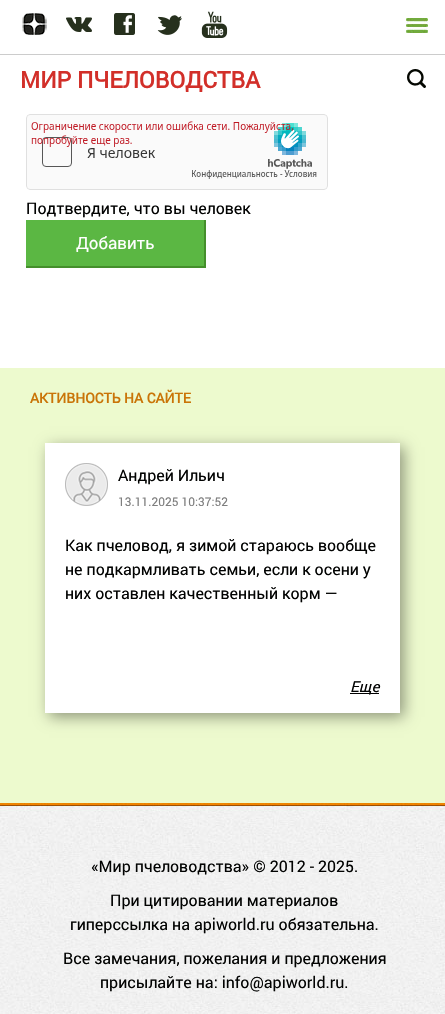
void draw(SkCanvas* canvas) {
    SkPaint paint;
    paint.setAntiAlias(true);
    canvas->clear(0xFFEDFACE);
    paint.setColor(0xFFFFFFFF);
    canvas->drawRect(SkRect::MakeXYWH(0, 0, 445, 368), paint);
    canvas->drawImageRect(SkImages::DeferredFromEncodedData(SkData::MakeFromFileName("img1.png")), SkRect::MakeXYWH(22, 13, 25, 22), SkSamplingOptions());
    canvas->drawImageRect(SkImages::DeferredFromEncodedData(SkData::MakeFromFileName("img2.png")), SkRect::MakeXYWH(66, 17, 26, 15), SkSamplingOptions());
    canvas->drawImageRect(SkImages::DeferredFromEncodedData(SkData::MakeFromFileName("img3.png")), SkRect::MakeXYWH(114, 13, 21, 22), SkSamplingOptions());
    canvas->drawImageRect(SkImages::DeferredFromEncodedData(SkData::MakeFromFileName("img4.png")), SkRect::MakeXYWH(157, 15, 25, 20), SkSamplingOptions());
    canvas->drawImageRect(SkImages::DeferredFromEncodedData(SkData::MakeFromFileName("img5.png")), SkRect::MakeXYWH(201, 11, 27, 27), SkSamplingOptions());
    canvas->drawImageRect(SkImages::DeferredFromEncodedData(SkData::MakeFromFileName("img6.png")), SkRect::MakeXYWH(406, 18, 22, 15), SkSamplingOptions());
    paint.setColor(0xFFCCCCCC);
    canvas->drawRect(SkRect::MakeXYWH(0, 54, 445, 1), paint);
    SkFont font1(fontMgr->matchFamilyStyle("Roboto", SkFontStyle::Bold()), 23);
    font1.setSubpixel(true);
    paint.setColor(0xFFD22F29);
    canvas->drawString("МИР ПЧЕЛОВОДСТВА", 20, 88, font1, paint);
    canvas->drawImageRect(SkImages::DeferredFromEncodedData(SkData::MakeFromFileName("img7.png")), SkRect::MakeXYWH(407, 69, 19, 19), SkSamplingOptions());
    canvas->drawImageRect(SkImages::DeferredFromEncodedData(SkData::MakeFromFileName("img8.png")), SkRect::MakeXYWH(26, 114, 302, 76), SkSamplingOptions());
    SkFont font2(fontMgr->matchFamilyStyle("Roboto", SkFontStyle::Normal()), 16);
    font2.setSubpixel(true);
    paint.setColor(0xFF020302);
    canvas->drawString("Подтвердите, что вы человек", 26, 214, font2, paint);
    paint.setColor(0xFF5BB743);
    canvas->drawRect(SkRect::MakeXYWH(26, 220, 178, 46), paint);
    paint.setColor(0xFF448F2B);
    canvas->drawRect(SkRect::MakeXYWH(204, 220, 2, 48), paint);
    canvas->drawRect(SkRect::MakeXYWH(26, 266, 180, 2), paint);
    SkFont font3(fontMgr->matchFamilyStyle("Roboto", SkFontStyle::Normal()), 17);
    font3.setSubpixel(true);
    paint.setColor(0xFFFFFFFF);
    canvas->drawString("Добавить", 76, 249, font3, paint);
    SkFont font4(fontMgr->matchFamilyStyle("Roboto", SkFontStyle::Bold()), 14);
    font4.setSubpixel(true);
    paint.setColor(0xFFCA7407);
    canvas->drawString("АКТИВНОСТЬ НА САЙТЕ", 30, 403, font4, paint);
    paint.setColor(0x66000000);
    paint.setMaskFilter(SkMaskFilter::MakeBlur(kNormal_SkBlurStyle, 7));
    canvas->drawRect(SkRect::MakeXYWH(49, 447, 355, 270), paint);
    paint.setMaskFilter(nullptr);
    paint.setColor(0xFFFFFFFF);
    canvas->drawRect(SkRect::MakeXYWH(45, 443, 355, 270), paint);
    canvas->drawImageRect(SkImages::DeferredFromEncodedData(SkData::MakeFromFileName("img9.png")), SkRect::MakeXYWH(65, 463, 43, 43), SkSamplingOptions());
    paint.setColor(0xFF020302);
    canvas->drawString("Андрей Ильич", 118, 481, font2, paint);
    SkFont font5(fontMgr->matchFamilyStyle("Roboto", SkFontStyle::Normal()), 12);
    font5.setSubpixel(true);
    paint.setColor(0xFF7E7E7E);
    canvas->drawString("13.11.2025 10:37:52", 118, 506, font5, paint);
    paint.setColor(0xFF020302);
    canvas->drawString("Как пчеловод, я зимой стараюсь вообще", 65, 551, font2, paint);
    canvas->drawString("не подкармливать семьи, если к осени у", 65, 575, font2, paint);
    canvas->drawString("них оставлен качественный корм —", 65, 599, font2, paint);
    paint.setColor(0xFF000000);
    canvas->drawRect(SkRect::MakeXYWH(350, 693, 29, 1), paint);
    SkFont font6(fontMgr->matchFamilyStyle("Roboto", SkFontStyle::Italic()), 15);
    font6.setSubpixel(true);
    paint.setColor(0xFF020302);
    canvas->drawString("Еще", 350, 692, font6, paint);
    canvas->drawImageRect(SkImages::DeferredFromEncodedData(SkData::MakeFromFileName("img10.png")), SkRect::MakeXYWH(0, 803, 445, 211), SkSamplingOptions());
    canvas->drawString("«Мир пчеловодства» © 2012 - 2025.", 91, 872, font2, paint);
    canvas->drawString("При цитировании материалов", 110, 906, font2, paint);
    canvas->drawString("гиперссылка на apiworld.ru обязательна.", 70, 930, font2, paint);
    canvas->drawString("Все замечания, пожелания и предложения", 63, 964, font2, paint);
    canvas->drawString("присылайте на: info@apiworld.ru.", 100, 988, font2, paint);
}
